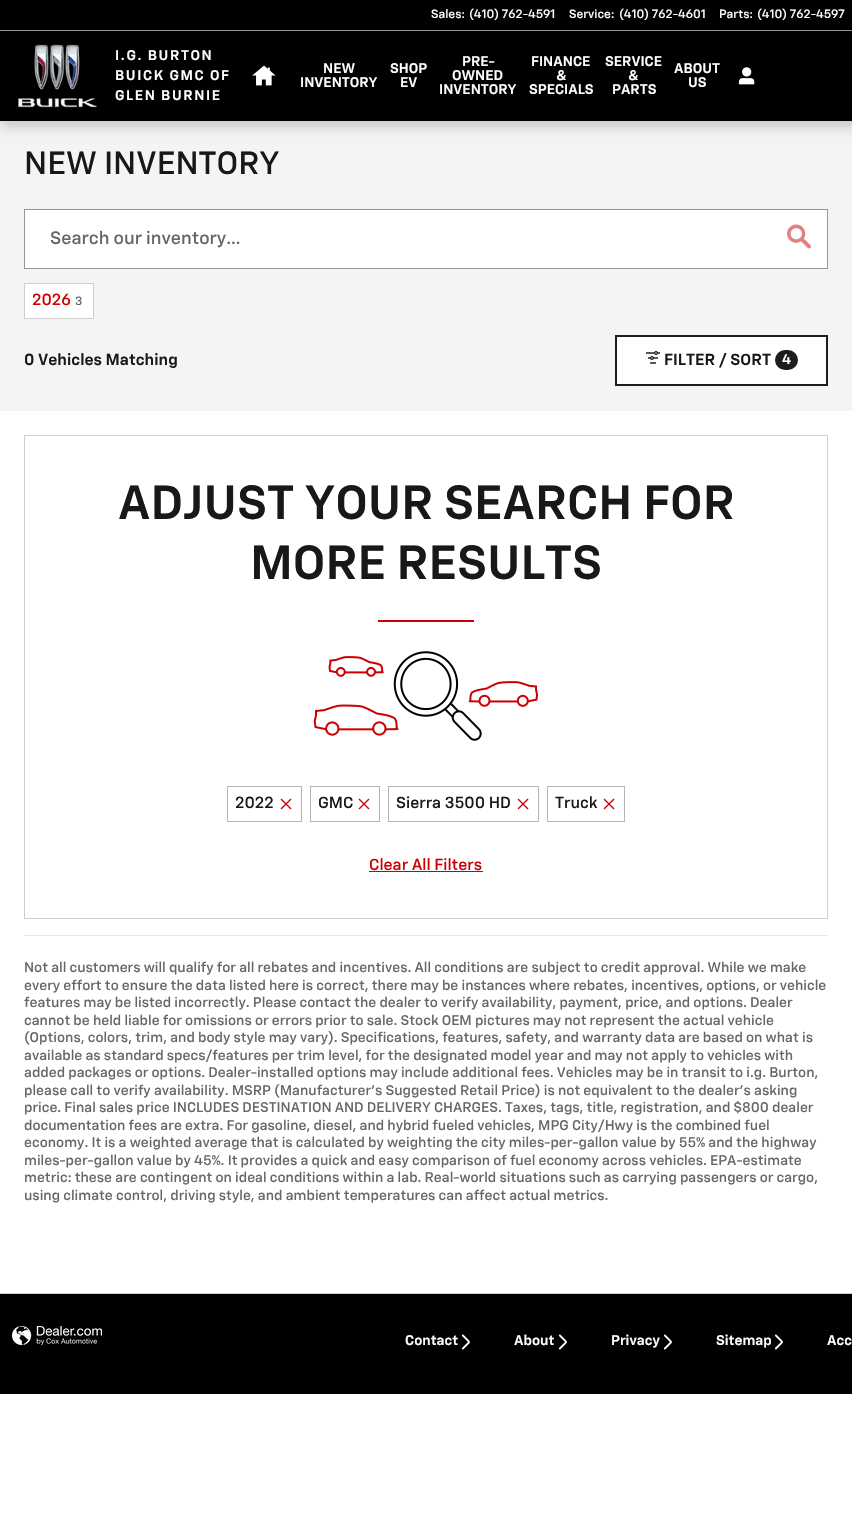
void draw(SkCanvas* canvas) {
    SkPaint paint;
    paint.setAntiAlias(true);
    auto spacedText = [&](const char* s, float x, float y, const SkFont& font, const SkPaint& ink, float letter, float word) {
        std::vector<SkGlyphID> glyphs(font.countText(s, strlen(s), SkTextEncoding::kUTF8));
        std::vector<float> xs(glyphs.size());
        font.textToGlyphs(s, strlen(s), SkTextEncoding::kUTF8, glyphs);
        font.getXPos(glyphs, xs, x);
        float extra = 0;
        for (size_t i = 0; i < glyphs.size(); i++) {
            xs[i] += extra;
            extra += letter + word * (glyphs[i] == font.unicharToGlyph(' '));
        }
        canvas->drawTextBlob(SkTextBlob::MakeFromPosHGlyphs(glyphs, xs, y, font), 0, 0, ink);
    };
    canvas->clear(0xFFFFFFFF);
    paint.setColor(0xFFF4F4F4);
    canvas->drawRect(SkRect::MakeXYWH(0, 121, 852, 290), paint);
    paint.setColor(0x2E000000);
    paint.setMaskFilter(SkMaskFilter::MakeBlur(kNormal_SkBlurStyle, 6));
    canvas->drawRect(SkRect::MakeXYWH(0, 6, 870, 121), paint);
    paint.setMaskFilter(nullptr);
    paint.setColor(0xFF000000);
    canvas->drawRect(SkRect::MakeXYWH(0, 0, 852, 121), paint);
    paint.setColor(0xFF969696);
    canvas->drawRect(SkRect::MakeXYWH(0, 30, 852, 1), paint);
    SkFont font1(fontMgr->matchFamilyStyle("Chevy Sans", SkFontStyle(500, SkFontStyle::kNormal_Width, SkFontStyle::kUpright_Slant)), 12);
    font1.setSubpixel(true);
    paint.setColor(0xFFFFFFFF);
    canvas->drawString("Sales:", 431, 18, font1, paint);
    canvas->drawString("(410) 762-4591", 469, 18, font1, paint);
    canvas->drawString("Service:", 569, 18, font1, paint);
    canvas->drawString("(410) 762-4601", 619, 18, font1, paint);
    canvas->drawString("Parts:", 719, 18, font1, paint);
    canvas->drawString("(410) 762-4597", 757, 18, font1, paint);
    canvas->drawImageRect(SkImages::DeferredFromEncodedData(SkData::MakeFromFileName("img1.png")), SkRect::MakeXYWH(18, 44, 79, 64), SkSamplingOptions());
    SkFont font2(fontMgr->matchFamilyStyle("Chevy Sans", SkFontStyle(600, SkFontStyle::kNormal_Width, SkFontStyle::kUpright_Slant)), 14);
    font2.setSubpixel(true);
    spacedText("I.G. BURTON", 115, 60, font2, paint, 1.6f, 0);
    spacedText("BUICK GMC OF", 115, 80, font2, paint, 1.6f, 0);
    spacedText("GLEN BURNIE", 115, 100, font2, paint, 1.6f, 0);
    canvas->drawImageRect(SkImages::DeferredFromEncodedData(SkData::MakeFromFileName("img2.png")), SkRect::MakeXYWH(252, 65, 24, 21), SkSamplingOptions());
    canvas->drawString("NEW", 323, 73, font2, paint);
    canvas->drawString("INVENTORY", 300, 87, font2, paint);
    canvas->drawString("SHOP", 390, 73, font2, paint);
    canvas->drawString("EV", 400, 87, font2, paint);
    canvas->drawString("PRE-", 462, 66, font2, paint);
    canvas->drawString("OWNED", 452, 80, font2, paint);
    canvas->drawString("INVENTORY", 439, 94, font2, paint);
    canvas->drawString("FINANCE", 531, 66, font2, paint);
    canvas->drawString("&", 556, 80, font2, paint);
    canvas->drawString("SPECIALS", 529, 94, font2, paint);
    canvas->drawString("SERVICE", 605, 66, font2, paint);
    canvas->drawString("&", 628, 80, font2, paint);
    canvas->drawString("PARTS", 612, 94, font2, paint);
    canvas->drawString("ABOUT", 674, 73, font2, paint);
    canvas->drawString("US", 688, 87, font2, paint);
    canvas->drawImageRect(SkImages::DeferredFromEncodedData(SkData::MakeFromFileName("img3.png")), SkRect::MakeXYWH(738, 67, 17, 18), SkSamplingOptions());
    SkFont font3(fontMgr->matchFamilyStyle("Chevy Sans", SkFontStyle(500, SkFontStyle::kNormal_Width, SkFontStyle::kUpright_Slant)), 32);
    font3.setSubpixel(true);
    paint.setColor(0xFF181818);
    canvas->drawString("NEW INVENTORY", 24, 174, font3, paint);
    paint.setColor(0xFFFFFFFF);
    canvas->drawRect(SkRect::MakeXYWH(24.5f, 209.5f, 803, 59), paint);
    paint.setStyle(SkPaint::kStroke_Style);
    paint.setStrokeWidth(1);
    paint.setColor(0xFF969696);
    canvas->drawRect(SkRect::MakeXYWH(24.5f, 209.5f, 803, 59), paint);
    SkFont font4(fontMgr->matchFamilyStyle("Chevy Sans", SkFontStyle(500, SkFontStyle::kNormal_Width, SkFontStyle::kUpright_Slant)), 18);
    font4.setSubpixel(true);
    paint.setStyle(SkPaint::kFill_Style);
    paint.setColor(0xFF666666);
    canvas->drawString("Search our inventory…", 50, 244, font4, paint);
    canvas->drawImageRect(SkImages::DeferredFromEncodedData(SkData::MakeFromFileName("img4.png")), SkRect::MakeXYWH(787, 224, 24, 25), SkSamplingOptions());
    paint.setColor(0xFFFFFFFF);
    canvas->drawRect(SkRect::MakeXYWH(24.5f, 283.5f, 69, 35), paint);
    paint.setStyle(SkPaint::kStroke_Style);
    paint.setColor(0xFFCFCFCF);
    canvas->drawRect(SkRect::MakeXYWH(24.5f, 283.5f, 69, 35), paint);
    SkFont font5(fontMgr->matchFamilyStyle("Chevy Sans", SkFontStyle(500, SkFontStyle::kNormal_Width, SkFontStyle::kUpright_Slant)), 16);
    font5.setSubpixel(true);
    paint.setStyle(SkPaint::kFill_Style);
    paint.setColor(0xFFCC0000);
    canvas->drawString("2026", 32, 305, font5, paint);
    paint.setColor(0xFF666666);
    canvas->drawString("3", 75, 305, font1, paint);
    SkFont font6(fontMgr->matchFamilyStyle("Chevy Sans", SkFontStyle(600, SkFontStyle::kNormal_Width, SkFontStyle::kUpright_Slant)), 16);
    font6.setSubpixel(true);
    paint.setColor(0xFF181818);
    canvas->drawString("0 Vehicles Matching", 24, 365, font6, paint);
    paint.setColor(0xFFFFFFFF);
    canvas->drawRect(SkRect::MakeXYWH(616, 336, 211, 49), paint);
    paint.setStyle(SkPaint::kStroke_Style);
    paint.setStrokeWidth(2);
    paint.setColor(0xFF1D1D1D);
    canvas->drawRect(SkRect::MakeXYWH(616, 336, 211, 49), paint);
    canvas->drawImageRect(SkImages::DeferredFromEncodedData(SkData::MakeFromFileName("img5.png")), SkRect::MakeXYWH(646, 351, 14, 13), SkSamplingOptions());
    paint.setStyle(SkPaint::kFill_Style);
    paint.setColor(0xFF181818);
    canvas->drawString("FILTER / SORT", 664, 365, font6, paint);
    paint.setColor(0xFF1D1D1D);
    canvas->drawRoundRect(SkRect::MakeXYWH(775, 350, 23, 20), 10, 10, paint);
    paint.setColor(0xFFFFFFFF);
    canvas->drawString("4", 782, 364, font2, paint);
    paint.setStyle(SkPaint::kStroke_Style);
    paint.setStrokeWidth(1);
    paint.setColor(0xFFCFCFCF);
    canvas->drawRect(SkRect::MakeXYWH(24.5f, 435.5f, 803, 483), paint);
    SkFont font7(fontMgr->matchFamilyStyle("Chevy Sans", SkFontStyle(600, SkFontStyle::kNormal_Width, SkFontStyle::kUpright_Slant)), 48);
    font7.setSubpixel(true);
    paint.setStyle(SkPaint::kFill_Style);
    paint.setColor(0xFF181818);
    canvas->drawString("ADJUST YOUR SEARCH FOR", 118, 519, font7, paint);
    canvas->drawString("MORE RESULTS", 250, 579, font7, paint);
    paint.setColor(0xFFCC0000);
    canvas->drawRect(SkRect::MakeXYWH(378, 620, 96, 2), paint);
    canvas->drawImageRect(SkImages::DeferredFromEncodedData(SkData::MakeFromFileName("img6.png")), SkRect::MakeXYWH(313, 651, 226, 90), SkSamplingOptions());
    paint.setStyle(SkPaint::kStroke_Style);
    paint.setColor(0xFFB4B4B4);
    canvas->drawRect(SkRect::MakeXYWH(227.5f, 786.5f, 74, 35), paint);
    paint.setStyle(SkPaint::kFill_Style);
    paint.setColor(0xFF181818);
    canvas->drawString("2022", 235, 808, font5, paint);
    canvas->drawImageRect(SkImages::DeferredFromEncodedData(SkData::MakeFromFileName("img7.png")), SkRect::MakeXYWH(280, 798, 12, 12), SkSamplingOptions());
    paint.setStyle(SkPaint::kStroke_Style);
    paint.setColor(0xFFB4B4B4);
    canvas->drawRect(SkRect::MakeXYWH(310.5f, 786.5f, 69, 35), paint);
    paint.setStyle(SkPaint::kFill_Style);
    paint.setColor(0xFF181818);
    canvas->drawString("GMC", 318, 808, font5, paint);
    canvas->drawImageRect(SkImages::DeferredFromEncodedData(SkData::MakeFromFileName("img7.png")), SkRect::MakeXYWH(358, 798, 12, 12), SkSamplingOptions());
    paint.setStyle(SkPaint::kStroke_Style);
    paint.setColor(0xFFB4B4B4);
    canvas->drawRect(SkRect::MakeXYWH(388.5f, 786.5f, 150, 35), paint);
    paint.setStyle(SkPaint::kFill_Style);
    paint.setColor(0xFF181818);
    canvas->drawString("Sierra 3500 HD", 396, 808, font5, paint);
    canvas->drawImageRect(SkImages::DeferredFromEncodedData(SkData::MakeFromFileName("img7.png")), SkRect::MakeXYWH(517, 798, 12, 12), SkSamplingOptions());
    paint.setStyle(SkPaint::kStroke_Style);
    paint.setColor(0xFFB4B4B4);
    canvas->drawRect(SkRect::MakeXYWH(547.5f, 786.5f, 77, 35), paint);
    paint.setStyle(SkPaint::kFill_Style);
    paint.setColor(0xFF181818);
    canvas->drawString("Truck", 555, 808, font5, paint);
    canvas->drawImageRect(SkImages::DeferredFromEncodedData(SkData::MakeFromFileName("img7.png")), SkRect::MakeXYWH(603, 798, 12, 12), SkSamplingOptions());
    paint.setColor(0xFFCC0000);
    canvas->drawString("Clear All Filters", 369, 870, font5, paint);
    canvas->drawRect(SkRect::MakeXYWH(369, 871, 114, 1), paint);
    paint.setColor(0xFFE6E6E6);
    canvas->drawRect(SkRect::MakeXYWH(24, 935, 804, 1), paint);
    SkFont font8(fontMgr->matchFamilyStyle("Chevy Sans", SkFontStyle(500, SkFontStyle::kNormal_Width, SkFontStyle::kUpright_Slant)), 14);
    font8.setSubpixel(true);
    paint.setColor(0xFF666666);
    canvas->drawString("Not all customers will qualify for all rebates and incentives. All conditions are subject to credit approval. While we make", 24, 972, font8, paint);
    canvas->drawString("every effort to ensure the data listed here is correct, there may be instances where rebates, incentives, options, or vehicle", 24, 990, font8, paint);
    canvas->drawString("features may be listed incorrectly. Please contact the dealer to verify availability, payment, price, and options. Dealer", 24, 1007, font8, paint);
    canvas->drawString("cannot be held liable for omissions or errors prior to sale. Stock OEM pictures may not represent the actual vehicle", 24, 1025, font8, paint);
    canvas->drawString("(Options, colors, trim, and body style may vary). Specifications, features, safety, and warranty data are based on what is", 24, 1042, font8, paint);
    canvas->drawString("available as standard specs/features per trim level, for the designated model year and may not apply to vehicles with", 24, 1060, font8, paint);
    canvas->drawString("added packages or options. Dealer-installed options may include additional fees. Vehicles may be in transit to i.g. Burton,", 24, 1077, font8, paint);
    canvas->drawString("please call to verify availability. MSRP (Manufacturer's Suggested Retail Price) is not equivalent to the dealer's asking", 24, 1095, font8, paint);
    canvas->drawString("price. Final sales price INCLUDES DESTINATION AND DELIVERY CHARGES. Taxes, tags, title, registration, and $800 dealer", 24, 1112, font8, paint);
    canvas->drawString("documentation fees are extra. For gasoline, diesel, and hybrid fueled vehicles, MPG City/Hwy is the combined fuel", 24, 1130, font8, paint);
    canvas->drawString("economy. It is a weighted average that is calculated by weighting the city miles-per-gallon value by 55% and the highway", 24, 1147, font8, paint);
    canvas->drawString("miles-per-gallon value by 45%. It provides a quick and easy comparison of fuel economy across vehicles. EPA-estimate", 24, 1165, font8, paint);
    canvas->drawString("metric: these are contingent on ideal conditions within a lab. Real-world situations such as carrying passengers or cargo,", 24, 1182, font8, paint);
    canvas->drawString("using climate control, driving style, and ambient temperatures can affect actual metrics.", 24, 1200, font8, paint);
    paint.setColor(0xFF000000);
    canvas->drawRect(SkRect::MakeXYWH(0, 1294, 852, 100), paint);
    paint.setColor(0xFFCFCFCF);
    canvas->drawRect(SkRect::MakeXYWH(0, 1293, 852, 1), paint);
    canvas->drawImageRect(SkImages::DeferredFromEncodedData(SkData::MakeFromFileName("img8.png")), SkRect::MakeXYWH(12, 1326, 90, 19), SkSamplingOptions());
    paint.setColor(0xFFFFFFFF);
    canvas->drawString("Contact", 405, 1345, font2, paint);
    canvas->drawImageRect(SkImages::DeferredFromEncodedData(SkData::MakeFromFileName("img9.png")), SkRect::MakeXYWH(461, 1334, 9, 16), SkSamplingOptions());
    canvas->drawString("About", 514, 1345, font2, paint);
    canvas->drawImageRect(SkImages::DeferredFromEncodedData(SkData::MakeFromFileName("img9.png")), SkRect::MakeXYWH(558, 1334, 9, 16), SkSamplingOptions());
    canvas->drawString("Privacy", 611, 1345, font2, paint);
    canvas->drawImageRect(SkImages::DeferredFromEncodedData(SkData::MakeFromFileName("img9.png")), SkRect::MakeXYWH(663, 1334, 9, 16), SkSamplingOptions());
    canvas->drawString("Sitemap", 716, 1345, font2, paint);
    canvas->drawImageRect(SkImages::DeferredFromEncodedData(SkData::MakeFromFileName("img9.png")), SkRect::MakeXYWH(774, 1334, 9, 16), SkSamplingOptions());
    canvas->drawString("Acc", 827, 1345, font2, paint);
}
